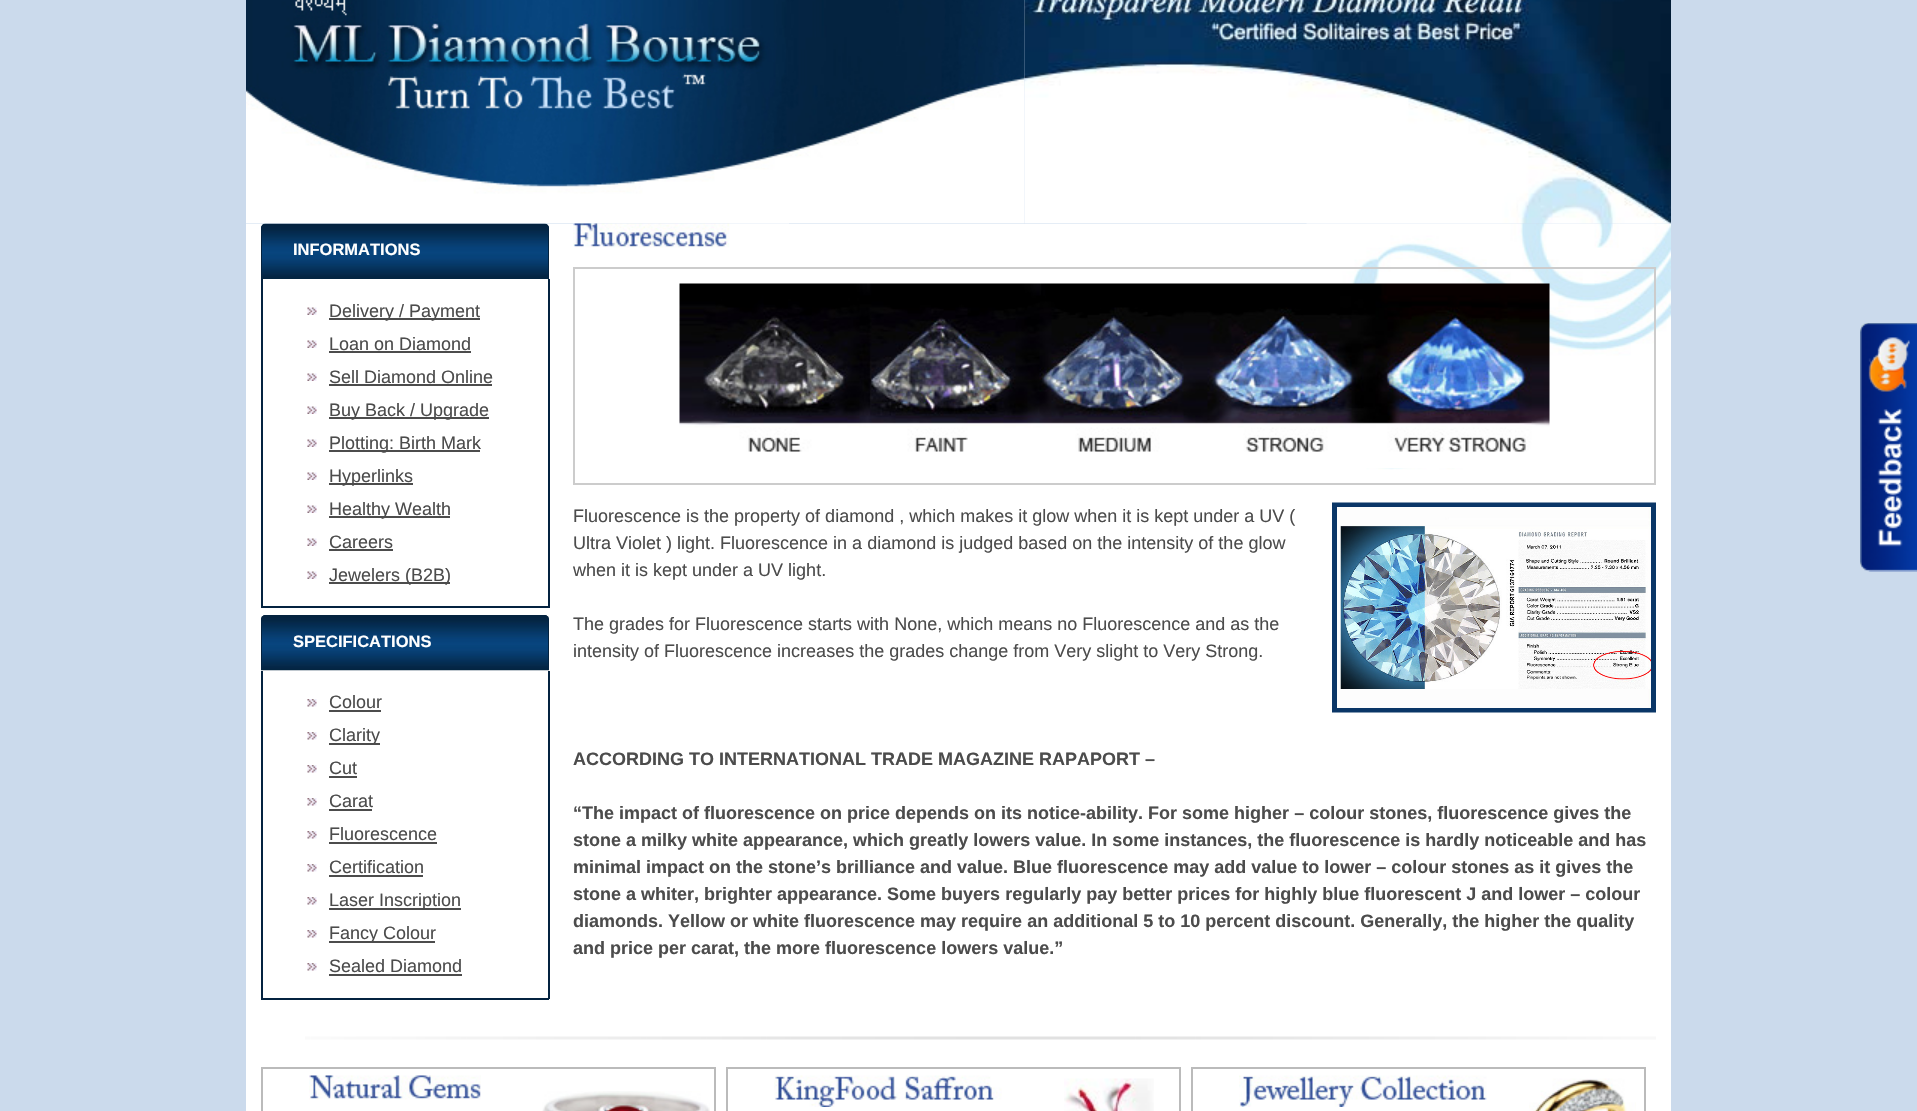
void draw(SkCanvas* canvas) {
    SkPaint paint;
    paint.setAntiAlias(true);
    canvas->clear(0xFFCBDAEC);
    canvas->drawImageRect(SkImages::DeferredFromEncodedData(SkData::MakeFromFileName("img1.png")), SkRect::MakeXYWH(246, 0, 779, 224), SkSamplingOptions());
    canvas->drawImageRect(SkImages::DeferredFromEncodedData(SkData::MakeFromFileName("img2.png")), SkRect::MakeXYWH(1024, 0, 647, 224), SkSamplingOptions());
    paint.setColor(0xFFFFFFFF);
    canvas->drawRect(SkRect::MakeXYWH(246, 224, 1425, 887), paint);
    canvas->drawImageRect(SkImages::DeferredFromEncodedData(SkData::MakeFromFileName("img3.png")), SkRect::MakeXYWH(1306, 223, 365, 247), SkSamplingOptions());
    canvas->drawImageRect(SkImages::DeferredFromEncodedData(SkData::MakeFromFileName("img4.png")), SkRect::MakeXYWH(261, 223, 288, 56), SkSamplingOptions());
    paint.setColor(0xFF042340);
    canvas->drawPath(SkPathBuilder(SkPathFillType::kEvenOdd).moveTo(266, 224).lineTo(544, 224).cubicTo(547, 224, 549, 226, 549, 228).lineTo(549, 279).lineTo(261, 279).lineTo(261, 228).cubicTo(261, 226, 263, 224, 266, 224).close().moveTo(266, 225).lineTo(544, 225).cubicTo(546, 225, 548, 226, 548, 228).lineTo(548, 279).lineTo(262, 279).lineTo(262, 228).cubicTo(262, 226, 264, 225, 266, 225).close().detach(), paint);
    SkFont font1(fontMgr->matchFamilyStyle("Liberation Sans", SkFontStyle::Bold()), 16.5f);
    font1.setSubpixel(true);
    paint.setColor(0xFFFFFFFF);
    canvas->drawString("INFORMATIONS", 293, 255, font1, paint);
    paint.setColor(0xFF042340);
    canvas->drawRect(SkRect::MakeXYWH(548, 279, 2, 329), paint);
    canvas->drawRect(SkRect::MakeXYWH(261, 606, 288, 2), paint);
    canvas->drawRect(SkRect::MakeXYWH(261, 279, 2, 329), paint);
    canvas->drawImageRect(SkImages::DeferredFromEncodedData(SkData::MakeFromFileName("img5.png")), SkRect::MakeXYWH(307, 307, 10, 8), SkSamplingOptions());
    paint.setColor(0xFF4C4C4C);
    canvas->drawRect(SkRect::MakeXYWH(329, 318, 151, 2), paint);
    SkFont font2(fontMgr->matchFamilyStyle("Liberation Sans", SkFontStyle::Normal()), 18);
    font2.setSubpixel(true);
    canvas->drawString("Delivery / Payment", 329, 317, font2, paint);
    canvas->drawImageRect(SkImages::DeferredFromEncodedData(SkData::MakeFromFileName("img5.png")), SkRect::MakeXYWH(307, 340, 10, 8), SkSamplingOptions());
    canvas->drawString("Loan on Diamond", 329, 350, font2, paint);
    canvas->drawRect(SkRect::MakeXYWH(329, 351, 142, 2), paint);
    canvas->drawImageRect(SkImages::DeferredFromEncodedData(SkData::MakeFromFileName("img5.png")), SkRect::MakeXYWH(307, 373, 10, 8), SkSamplingOptions());
    canvas->drawString("Sell Diamond Online", 329, 383, font2, paint);
    canvas->drawRect(SkRect::MakeXYWH(329, 384, 163, 2), paint);
    canvas->drawImageRect(SkImages::DeferredFromEncodedData(SkData::MakeFromFileName("img5.png")), SkRect::MakeXYWH(307, 406, 10, 8), SkSamplingOptions());
    canvas->drawRect(SkRect::MakeXYWH(329, 417, 160, 2), paint);
    canvas->drawString("Buy Back / Upgrade", 329, 416, font2, paint);
    canvas->drawImageRect(SkImages::DeferredFromEncodedData(SkData::MakeFromFileName("img5.png")), SkRect::MakeXYWH(307, 439, 10, 8), SkSamplingOptions());
    canvas->drawRect(SkRect::MakeXYWH(329, 450, 151, 2), paint);
    canvas->drawString("Plotting: Birth Mark", 329, 449, font2, paint);
    canvas->drawImageRect(SkImages::DeferredFromEncodedData(SkData::MakeFromFileName("img5.png")), SkRect::MakeXYWH(307, 472, 10, 8), SkSamplingOptions());
    canvas->drawRect(SkRect::MakeXYWH(329, 483, 84, 2), paint);
    canvas->drawString("Hyperlinks", 329, 482, font2, paint);
    canvas->drawImageRect(SkImages::DeferredFromEncodedData(SkData::MakeFromFileName("img5.png")), SkRect::MakeXYWH(307, 505, 10, 8), SkSamplingOptions());
    canvas->drawRect(SkRect::MakeXYWH(329, 516, 121, 2), paint);
    canvas->drawString("Healthy Wealth", 329, 515, font2, paint);
    canvas->drawImageRect(SkImages::DeferredFromEncodedData(SkData::MakeFromFileName("img5.png")), SkRect::MakeXYWH(307, 538, 10, 8), SkSamplingOptions());
    canvas->drawString("Careers", 329, 548, font2, paint);
    canvas->drawRect(SkRect::MakeXYWH(329, 549, 64, 2), paint);
    canvas->drawImageRect(SkImages::DeferredFromEncodedData(SkData::MakeFromFileName("img5.png")), SkRect::MakeXYWH(307, 571, 10, 8), SkSamplingOptions());
    canvas->drawRect(SkRect::MakeXYWH(329, 582, 121, 2), paint);
    canvas->drawString("Jewelers (B2B)", 329, 581, font2, paint);
    canvas->drawImageRect(SkImages::DeferredFromEncodedData(SkData::MakeFromFileName("img6.png")), SkRect::MakeXYWH(261, 615, 288, 56), SkSamplingOptions());
    paint.setColor(0xFF042340);
    canvas->drawPath(SkPathBuilder(SkPathFillType::kEvenOdd).moveTo(266, 615).lineTo(544, 615).cubicTo(547, 615, 549, 617, 549, 620).lineTo(549, 670).lineTo(261, 670).lineTo(261, 620).cubicTo(261, 617, 263, 615, 266, 615).close().moveTo(266, 616).lineTo(544, 616).cubicTo(546, 616, 548, 618, 548, 620).lineTo(548, 670).lineTo(262, 670).lineTo(262, 620).cubicTo(262, 618, 264, 616, 266, 616).close().detach(), paint);
    paint.setColor(0xFFFFFFFF);
    canvas->drawString("SPECIFICATIONS", 293, 647, font1, paint);
    paint.setColor(0xFF042340);
    canvas->drawRect(SkRect::MakeXYWH(548, 671, 2, 328), paint);
    canvas->drawRect(SkRect::MakeXYWH(261, 998, 288, 2), paint);
    canvas->drawRect(SkRect::MakeXYWH(261, 671, 2, 328), paint);
    canvas->drawImageRect(SkImages::DeferredFromEncodedData(SkData::MakeFromFileName("img7.png")), SkRect::MakeXYWH(307, 699, 10, 8), SkSamplingOptions());
    paint.setColor(0xFF4C4C4C);
    canvas->drawString("Colour", 329, 708, font2, paint);
    canvas->drawRect(SkRect::MakeXYWH(329, 710, 52, 2), paint);
    canvas->drawImageRect(SkImages::DeferredFromEncodedData(SkData::MakeFromFileName("img7.png")), SkRect::MakeXYWH(307, 732, 10, 8), SkSamplingOptions());
    canvas->drawRect(SkRect::MakeXYWH(329, 743, 51, 2), paint);
    canvas->drawString("Clarity", 329, 741, font2, paint);
    canvas->drawImageRect(SkImages::DeferredFromEncodedData(SkData::MakeFromFileName("img7.png")), SkRect::MakeXYWH(307, 765, 10, 8), SkSamplingOptions());
    canvas->drawString("Cut", 329, 774, font2, paint);
    canvas->drawRect(SkRect::MakeXYWH(329, 776, 28, 2), paint);
    canvas->drawImageRect(SkImages::DeferredFromEncodedData(SkData::MakeFromFileName("img7.png")), SkRect::MakeXYWH(307, 798, 10, 8), SkSamplingOptions());
    canvas->drawString("Carat", 329, 807, font2, paint);
    canvas->drawRect(SkRect::MakeXYWH(329, 809, 43, 2), paint);
    canvas->drawImageRect(SkImages::DeferredFromEncodedData(SkData::MakeFromFileName("img7.png")), SkRect::MakeXYWH(307, 831, 10, 8), SkSamplingOptions());
    canvas->drawString("Fluorescence", 329, 840, font2, paint);
    canvas->drawRect(SkRect::MakeXYWH(329, 842, 108, 2), paint);
    canvas->drawImageRect(SkImages::DeferredFromEncodedData(SkData::MakeFromFileName("img7.png")), SkRect::MakeXYWH(307, 864, 10, 8), SkSamplingOptions());
    canvas->drawString("Certification", 329, 873, font2, paint);
    canvas->drawRect(SkRect::MakeXYWH(329, 875, 94, 2), paint);
    canvas->drawImageRect(SkImages::DeferredFromEncodedData(SkData::MakeFromFileName("img7.png")), SkRect::MakeXYWH(307, 897, 10, 8), SkSamplingOptions());
    canvas->drawRect(SkRect::MakeXYWH(329, 908, 132, 2), paint);
    canvas->drawString("Laser Inscription", 329, 906, font2, paint);
    canvas->drawImageRect(SkImages::DeferredFromEncodedData(SkData::MakeFromFileName("img7.png")), SkRect::MakeXYWH(307, 930, 10, 8), SkSamplingOptions());
    canvas->drawRect(SkRect::MakeXYWH(329, 941, 106, 2), paint);
    canvas->drawString("Fancy Colour", 329, 939, font2, paint);
    canvas->drawImageRect(SkImages::DeferredFromEncodedData(SkData::MakeFromFileName("img7.png")), SkRect::MakeXYWH(307, 963, 10, 8), SkSamplingOptions());
    canvas->drawString("Sealed Diamond", 329, 972, font2, paint);
    canvas->drawRect(SkRect::MakeXYWH(329, 974, 133, 2), paint);
    canvas->drawImageRect(SkImages::DeferredFromEncodedData(SkData::MakeFromFileName("img8.png")), SkRect::MakeXYWH(573, 223, 216, 25), SkSamplingOptions());
    paint.setStyle(SkPaint::kStroke_Style);
    paint.setStrokeWidth(2);
    paint.setColor(0xFFCCCCCC);
    canvas->drawRect(SkRect::MakeXYWH(574, 268, 1081, 216), paint);
    canvas->drawImageRect(SkImages::DeferredFromEncodedData(SkData::MakeFromFileName("img9.png")), SkRect::MakeXYWH(679, 283, 871, 185), SkSamplingOptions());
    paint.setStyle(SkPaint::kFill_Style);
    paint.setColor(0xFF4C4C4C);
    canvas->drawString("Fluorescence is the property of diamond , which makes it glow when it is kept under a UV (", 573, 522, font2, paint);
    canvas->drawString("Ultra Violet ) light. Fluorescence in a diamond is judged based on the intensity of the glow", 573, 549, font2, paint);
    canvas->drawString("when it is kept under a UV light.", 573, 576, font2, paint);
    canvas->drawString("The grades for Fluorescence starts with None, which means no Fluorescence and as the", 573, 630, font2, paint);
    canvas->drawString("intensity of Fluorescence increases the grades change from Very slight to Very Strong.", 573, 657, font2, paint);
    canvas->drawImageRect(SkImages::DeferredFromEncodedData(SkData::MakeFromFileName("img10.png")), SkRect::MakeXYWH(1332, 502, 324, 211), SkSamplingOptions());
    SkFont font3(fontMgr->matchFamilyStyle("Liberation Sans", SkFontStyle::Bold()), 18);
    font3.setSubpixel(true);
    canvas->drawString("ACCORDING TO INTERNATIONAL TRADE MAGAZINE RAPAPORT –", 573, 765, font3, paint);
    canvas->drawString("“The impact of fluorescence on price depends on its notice-ability. For some higher – colour stones, fluorescence gives the", 573, 819, font3, paint);
    canvas->drawString("stone a milky white appearance, which greatly lowers value. In some instances, the fluorescence is hardly noticeable and has", 573, 846, font3, paint);
    canvas->drawString("minimal impact on the stone’s brilliance and value. Blue fluorescence may add value to lower – colour stones as it gives the", 573, 873, font3, paint);
    canvas->drawString("stone a whiter, brighter appearance. Some buyers regularly pay better prices for highly blue fluorescent J and lower – colour", 573, 900, font3, paint);
    canvas->drawString("diamonds. Yellow or white fluorescence may require an additional 5 to 10 percent discount. Generally, the higher the quality", 573, 927, font3, paint);
    canvas->drawString("and price per carat, the more fluorescence lowers value.”", 573, 954, font3, paint);
    canvas->drawImageRect(SkImages::DeferredFromEncodedData(SkData::MakeFromFileName("img11.png")), SkRect::MakeXYWH(305, 1036, 1351, 4), SkSamplingOptions());
    paint.setStyle(SkPaint::kStroke_Style);
    paint.setColor(0xFFBBBBBB);
    canvas->drawRect(SkRect::MakeXYWH(262, 1068, 453, 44), paint);
    canvas->drawImageRect(SkImages::DeferredFromEncodedData(SkData::MakeFromFileName("img12.png")), SkRect::MakeXYWH(309, 1075, 172, 25), SkSamplingOptions());
    canvas->drawImageRect(SkImages::DeferredFromEncodedData(SkData::MakeFromFileName("img13.png")), SkRect::MakeXYWH(542, 1091, 168, 20), SkSamplingOptions());
    canvas->drawRect(SkRect::MakeXYWH(727, 1068, 453, 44), paint);
    canvas->drawImageRect(SkImages::DeferredFromEncodedData(SkData::MakeFromFileName("img14.png")), SkRect::MakeXYWH(774, 1075, 228, 32), SkSamplingOptions());
    canvas->drawImageRect(SkImages::DeferredFromEncodedData(SkData::MakeFromFileName("img15.png")), SkRect::MakeXYWH(1064, 1078, 90, 33), SkSamplingOptions());
    canvas->drawRect(SkRect::MakeXYWH(1192, 1068, 453, 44), paint);
    canvas->drawImageRect(SkImages::DeferredFromEncodedData(SkData::MakeFromFileName("img16.png")), SkRect::MakeXYWH(1239, 1075, 248, 32), SkSamplingOptions());
    canvas->drawImageRect(SkImages::DeferredFromEncodedData(SkData::MakeFromFileName("img17.png")), SkRect::MakeXYWH(1529, 1078, 107, 33), SkSamplingOptions());
    canvas->drawImageRect(SkImages::DeferredFromEncodedData(SkData::MakeFromFileName("img18.png")), SkRect::MakeXYWH(1860, 323, 57, 249), SkSamplingOptions());
}
